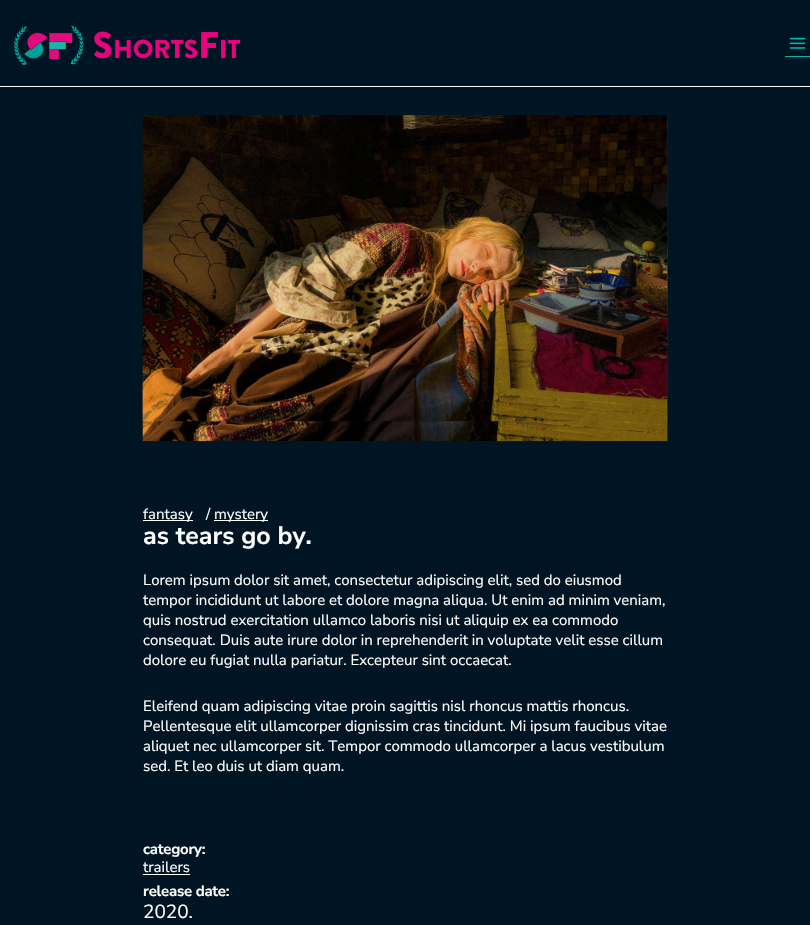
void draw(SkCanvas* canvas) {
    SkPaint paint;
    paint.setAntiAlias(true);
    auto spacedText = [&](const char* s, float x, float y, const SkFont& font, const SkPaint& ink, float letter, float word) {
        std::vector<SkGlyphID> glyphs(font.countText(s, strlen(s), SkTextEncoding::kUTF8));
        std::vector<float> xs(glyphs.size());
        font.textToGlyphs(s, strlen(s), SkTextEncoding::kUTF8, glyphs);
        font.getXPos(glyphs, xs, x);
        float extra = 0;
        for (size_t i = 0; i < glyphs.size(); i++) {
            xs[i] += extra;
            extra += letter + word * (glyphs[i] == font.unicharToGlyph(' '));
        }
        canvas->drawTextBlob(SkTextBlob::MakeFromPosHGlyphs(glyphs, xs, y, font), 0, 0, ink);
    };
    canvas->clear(0xFF001523);
    paint.setColor(0xFFFFFFFF);
    canvas->drawRect(SkRect::MakeXYWH(0, 86, 810, 1), paint);
    canvas->drawImageRect(SkImages::DeferredFromEncodedData(SkData::MakeFromFileName("img1.png")), SkRect::MakeXYWH(13, 25, 228, 40), SkSamplingOptions());
    paint.setColor(0xFF00B8AD);
    canvas->drawRect(SkRect::MakeXYWH(785, 56, 25, 1), paint);
    canvas->drawImageRect(SkImages::DeferredFromEncodedData(SkData::MakeFromFileName("img2.png")), SkRect::MakeXYWH(789, 37, 17, 12), SkSamplingOptions());
    paint.setColor(0xFF222222);
    canvas->drawRect(SkRect::MakeXYWH(667, 115, 1, 326), paint);
    canvas->drawImageRect(SkImages::DeferredFromEncodedData(SkData::MakeFromFileName("img3.png")), SkRect::MakeXYWH(142, 115, 526, 327), SkSamplingOptions());
    canvas->drawImageRect(SkImages::DeferredFromEncodedData(SkData::MakeFromFileName("img4.png")), SkRect::MakeXYWH(142, 115, 526, 307), SkSamplingOptions());
    paint.setColor(0xFFFFFFFF);
    canvas->drawRect(SkRect::MakeXYWH(143, 520, 50, 1), paint);
    SkFont font1(fontMgr->matchFamilyStyle("Nunito Sans", SkFontStyle::Normal()), 15);
    font1.setSubpixel(true);
    canvas->drawString("fantasy", 143, 519, font1, paint);
    canvas->drawString("/", 206, 519, font1, paint);
    canvas->drawRect(SkRect::MakeXYWH(214, 520, 54, 1), paint);
    canvas->drawString("mystery", 214, 519, font1, paint);
    SkFont font2(fontMgr->matchFamilyStyle("Nunito Sans", SkFontStyle::Bold()), 25);
    font2.setSubpixel(true);
    canvas->drawString("as tears go by.", 143, 544, font2, paint);
    canvas->drawString("Lorem ipsum dolor sit amet, consectetur adipiscing elit, sed do eiusmod", 143, 585, font1, paint);
    canvas->drawString("tempor incididunt ut labore et dolore magna aliqua. Ut enim ad minim veniam,", 143, 605, font1, paint);
    canvas->drawString("quis nostrud exercitation ullamco laboris nisi ut aliquip ex ea commodo", 143, 625, font1, paint);
    canvas->drawString("consequat. Duis aute irure dolor in reprehenderit in voluptate velit esse cillum", 143, 645, font1, paint);
    canvas->drawString("dolore eu fugiat nulla pariatur. Excepteur sint occaecat.", 143, 665, font1, paint);
    canvas->drawString("Eleifend quam adipiscing vitae proin sagittis nisl rhoncus mattis rhoncus.", 143, 711, font1, paint);
    canvas->drawString("Pellentesque elit ullamcorper dignissim cras tincidunt. Mi ipsum faucibus vitae", 143, 731, font1, paint);
    canvas->drawString("aliquet nec ullamcorper sit. Tempor commodo ullamcorper a lacus vestibulum", 143, 751, font1, paint);
    canvas->drawString("sed. Et leo duis ut diam quam.", 143, 771, font1, paint);
    SkFont font3(fontMgr->matchFamilyStyle("Nunito Sans", SkFontStyle::Bold()), 15);
    font3.setSubpixel(true);
    spacedText("category:", 143, 854, font3, paint, -0.25f, 0);
    canvas->drawString("trailers", 143, 872, font1, paint);
    canvas->drawRect(SkRect::MakeXYWH(143, 874, 47, 1), paint);
    spacedText("release date:", 143, 896, font3, paint, -0.25f, 0);
    SkFont font4(fontMgr->matchFamilyStyle("Nunito Sans", SkFontStyle::Normal()), 19);
    font4.setSubpixel(true);
    canvas->drawString("2020.", 143, 918, font4, paint);
}
